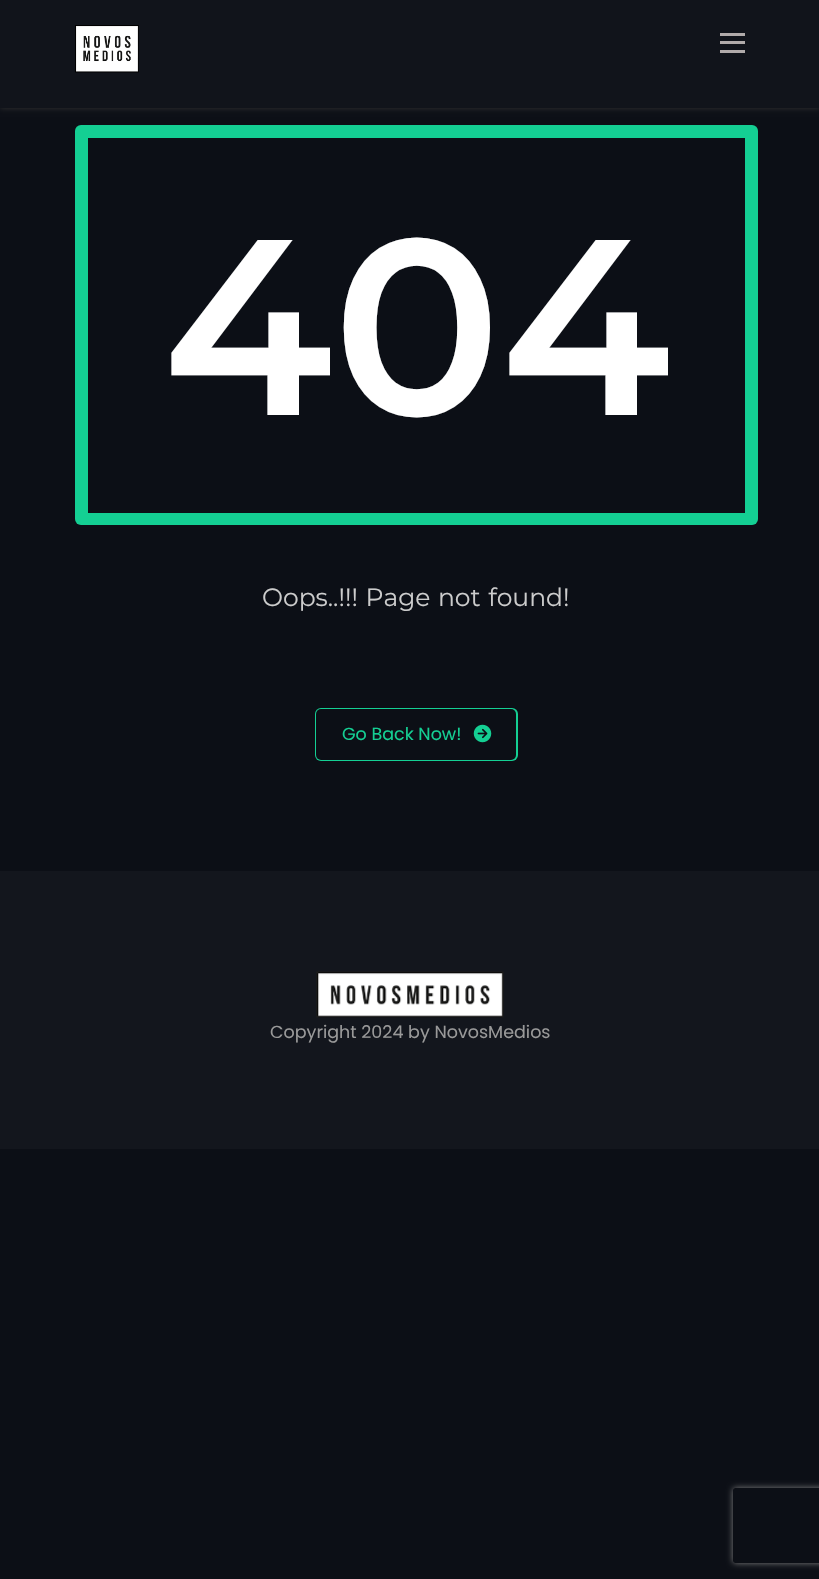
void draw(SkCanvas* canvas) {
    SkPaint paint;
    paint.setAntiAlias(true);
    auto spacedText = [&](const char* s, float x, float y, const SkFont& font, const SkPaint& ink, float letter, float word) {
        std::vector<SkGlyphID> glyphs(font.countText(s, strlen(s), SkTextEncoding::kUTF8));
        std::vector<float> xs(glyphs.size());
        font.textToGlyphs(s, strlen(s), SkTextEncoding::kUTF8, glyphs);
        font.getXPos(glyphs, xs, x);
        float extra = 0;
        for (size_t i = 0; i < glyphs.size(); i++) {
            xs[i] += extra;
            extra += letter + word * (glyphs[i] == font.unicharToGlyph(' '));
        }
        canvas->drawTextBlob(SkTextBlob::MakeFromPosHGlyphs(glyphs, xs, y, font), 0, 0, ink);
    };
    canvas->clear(0xFF0C0F16);
    paint.setColor(0xFF333333);
    paint.setMaskFilter(SkMaskFilter::MakeBlur(kNormal_SkBlurStyle, 3));
    canvas->drawRect(SkRect::MakeXYWH(0, 0, 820, 108), paint);
    paint.setMaskFilter(nullptr);
    paint.setColor(0xFF11141B);
    canvas->drawRect(SkRect::MakeXYWH(0, 0, 819, 108), paint);
    canvas->drawImageRect(SkImages::DeferredFromEncodedData(SkData::MakeFromFileName("img1.png")), SkRect::MakeXYWH(75, 25, 64, 48), SkSamplingOptions());
    paint.setColor(0xFFB1ABAB);
    canvas->drawRect(SkRect::MakeXYWH(720, 41, 25, 3), paint);
    canvas->drawRect(SkRect::MakeXYWH(720, 33, 25, 3), paint);
    canvas->drawRect(SkRect::MakeXYWH(720, 50, 25, 3), paint);
    paint.setColor(0xFF14CF93);
    canvas->drawRoundRect(SkRect::MakeXYWH(75, 125, 683, 400), 6, 6, paint);
    paint.setColor(0xFF0C0F16);
    canvas->drawRect(SkRect::MakeXYWH(88, 138, 657, 375), paint);
    SkFont font1(fontMgr->matchFamilyStyle("Montserrat", SkFontStyle(600, SkFontStyle::kNormal_Width, SkFontStyle::kUpright_Slant)), 250);
    font1.setSubpixel(true);
    paint.setColor(0xFFFFFFFF);
    canvas->drawString("404", 163, 415, font1, paint);
    SkFont font2(fontMgr->matchFamilyStyle("Montserrat", SkFontStyle::Normal()), 25);
    font2.setSubpixel(true);
    paint.setColor(0xFFCCCCCC);
    spacedText("Oops..!!! Page not found!", 262, 606, font2, paint, 0, 1);
    paint.setColor(0xFF14CF93);
    canvas->drawRoundRect(SkRect::MakeXYWH(315, 708, 203, 53), 6, 6, paint);
    paint.setColor(0xFF0C0F16);
    canvas->drawRoundRect(SkRect::MakeXYWH(316, 709, 200, 51), 5, 5, paint);
    SkFont font3(fontMgr->matchFamilyStyle("Poppins", SkFontStyle::Normal()), 17.5f);
    font3.setSubpixel(true);
    paint.setColor(0xFF14CF93);
    canvas->drawString("Go Back Now!", 342, 740, font3, paint);
    canvas->drawImageRect(SkImages::DeferredFromEncodedData(SkData::MakeFromFileName("img2.png")), SkRect::MakeXYWH(473, 724, 19, 19), SkSamplingOptions());
    paint.setColor(0xFF13161D);
    canvas->drawRect(SkRect::MakeXYWH(0, 871, 819, 278), paint);
    canvas->drawImageRect(SkImages::DeferredFromEncodedData(SkData::MakeFromFileName("img3.png")), SkRect::MakeXYWH(316, 971, 188, 47), SkSamplingOptions());
    paint.setColor(0xFF999999);
    canvas->drawString("Copyright 2024 by NovosMedios", 270, 1038, font3, paint);
    canvas->save();
    canvas->clipPath(SkPathBuilder(SkPathFillType::kEvenOdd).moveTo(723, 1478).lineTo(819, 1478).lineTo(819, 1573).lineTo(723, 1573).close().moveTo(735.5f, 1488).lineTo(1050.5f, 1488).cubicTo(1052, 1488, 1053, 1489, 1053, 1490.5f).lineTo(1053, 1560.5f).cubicTo(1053, 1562, 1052, 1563, 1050.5f, 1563).lineTo(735.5f, 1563).cubicTo(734, 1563, 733, 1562, 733, 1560.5f).lineTo(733, 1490.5f).cubicTo(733, 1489, 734, 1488, 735.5f, 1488).close().detach(), true);
    paint.setColor(0xFF808080);
    paint.setMaskFilter(SkMaskFilter::MakeBlur(kNormal_SkBlurStyle, 3));
    canvas->drawRoundRect(SkRect::MakeXYWH(733, 1488, 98, 75), 2.5f, 2.5f, paint);
    paint.setMaskFilter(nullptr);
    canvas->restore();
}
